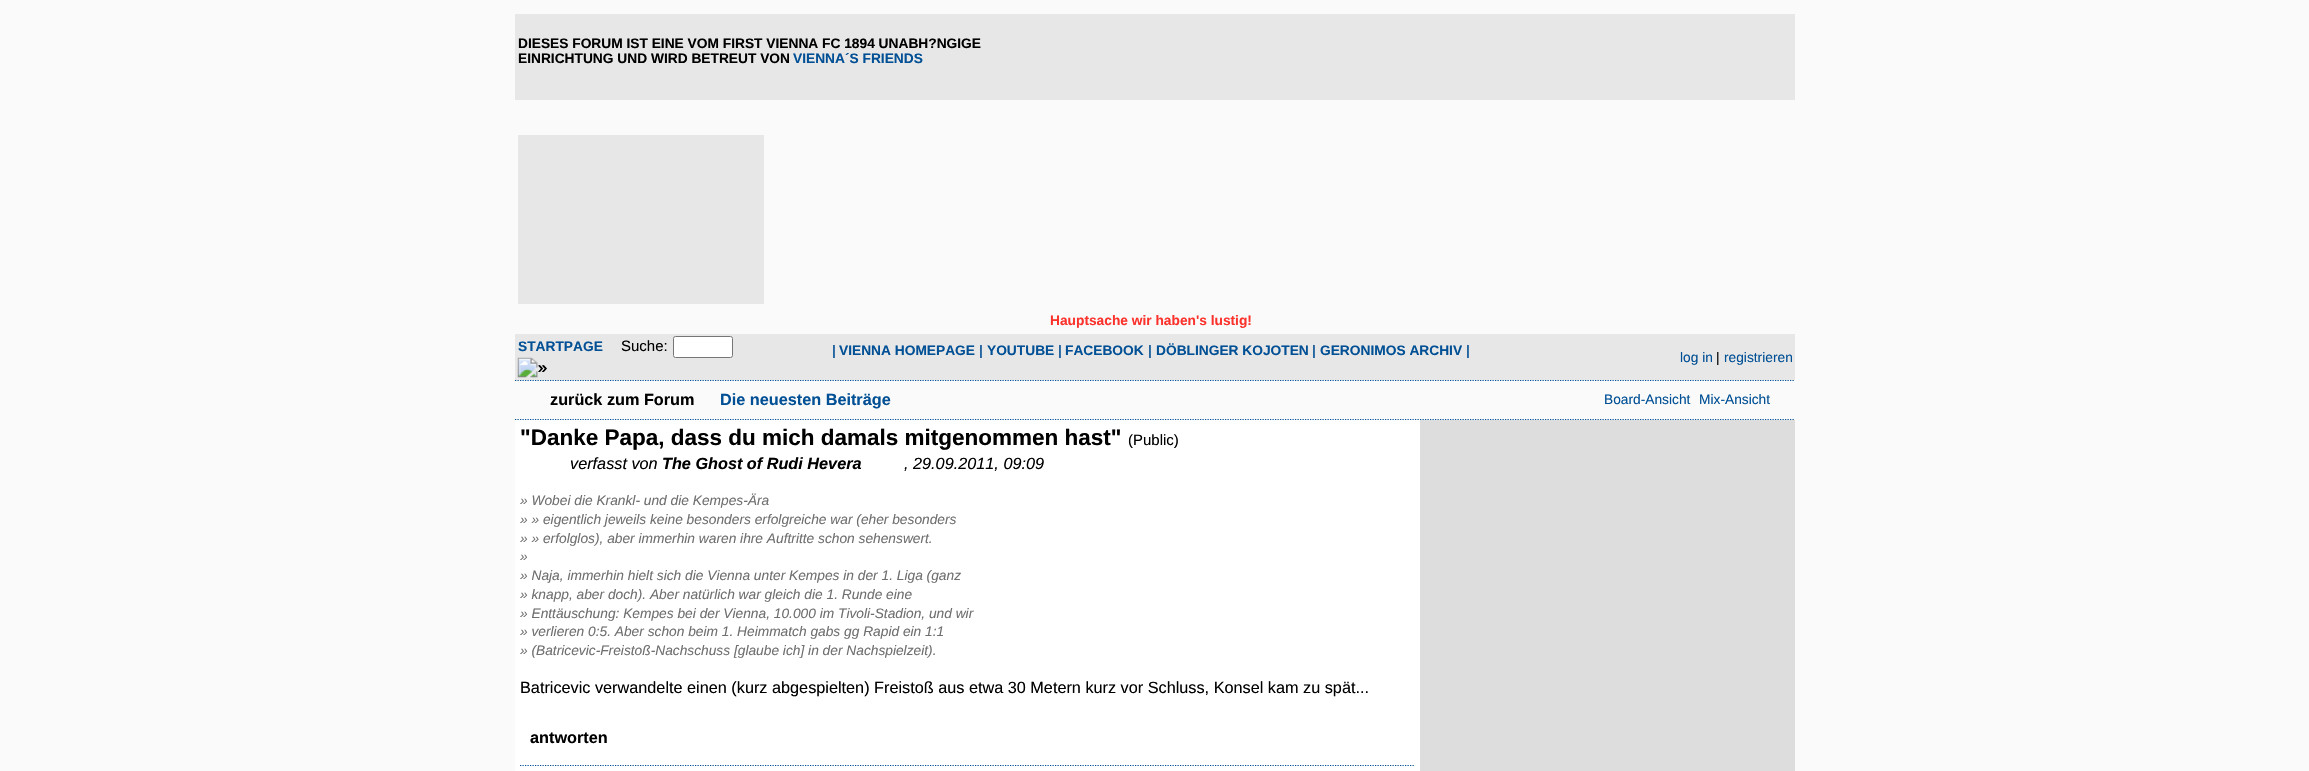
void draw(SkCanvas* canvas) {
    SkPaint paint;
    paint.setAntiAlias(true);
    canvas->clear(0xFFFAFAFA);
    paint.setColor(0xFFE7E7E7);
    canvas->drawRect(SkRect::MakeXYWH(515, 14, 1280, 86), paint);
    SkFont font1(fontMgr->matchFamilyStyle("Liberation Sans", SkFontStyle::Bold()), 13.75f);
    font1.setSubpixel(true);
    paint.setColor(0xFF000000);
    canvas->drawString("DIESES FORUM IST EINE VOM FIRST VIENNA FC 1894 UNABH?NGIGE", 518, 48, font1, paint);
    canvas->drawString("EINRICHTUNG UND WIRD BETREUT VON", 518, 63, font1, paint);
    paint.setColor(0xFF015095);
    canvas->drawString("VIENNA´S FRIENDS", 793, 63, font1, paint);
    paint.setColor(0xFFE7E7E7);
    canvas->drawRect(SkRect::MakeXYWH(518, 135, 246, 169), paint);
    paint.setColor(0xFFFC322C);
    canvas->drawString("Hauptsache wir haben's lustig!", 1050, 325, font1, paint);
    paint.setColor(0xFFE7E7E7);
    canvas->drawRect(SkRect::MakeXYWH(515, 334, 1280, 46), paint);
    SkFont font2(fontMgr->matchFamilyStyle("Liberation Sans", SkFontStyle::Normal()), 15);
    font2.setSubpixel(true);
    paint.setColor(0xFF000000);
    canvas->drawString("Suche:", 621, 351, font2, paint);
    paint.setColor(0xFFFFFFFF);
    canvas->drawRoundRect(SkRect::MakeXYWH(673.5f, 336.5f, 59, 21), 2, 2, paint);
    paint.setStyle(SkPaint::kStroke_Style);
    paint.setStrokeWidth(1);
    paint.setColor(0xFF767676);
    canvas->drawRoundRect(SkRect::MakeXYWH(673.5f, 336.5f, 59, 21), 2, 2, paint);
    canvas->drawImageRect(SkImages::DeferredFromEncodedData(SkData::MakeFromFileName("img1.png")), SkRect::MakeXYWH(517, 357, 29, 21), SkSamplingOptions());
    SkFont font3(fontMgr->matchFamilyStyle("Liberation Sans", SkFontStyle::Normal()), 17);
    font3.setSubpixel(true);
    paint.setStyle(SkPaint::kFill_Style);
    paint.setColor(0xFF000000);
    canvas->drawString("»", 538, 373, font3, paint);
    paint.setColor(0xFF015095);
    canvas->drawString("STARTPAGE", 518, 351, font1, paint);
    paint.setColor(0xFF1F619E);
    canvas->drawString("|", 832, 355, font1, paint);
    paint.setColor(0xFF015095);
    canvas->drawString("VIENNA HOMEPAGE", 839, 355, font1, paint);
    paint.setColor(0xFF1F619E);
    canvas->drawString("|", 979, 355, font1, paint);
    paint.setColor(0xFF015095);
    canvas->drawString("YOUTUBE", 987, 355, font1, paint);
    paint.setColor(0xFF1F619E);
    canvas->drawString("|", 1058, 355, font1, paint);
    paint.setColor(0xFF015095);
    canvas->drawString("FACEBOOK", 1065, 355, font1, paint);
    paint.setColor(0xFF1F619E);
    canvas->drawString("|", 1148, 355, font1, paint);
    paint.setColor(0xFF015095);
    canvas->drawString("DÖBLINGER KOJOTEN", 1156, 355, font1, paint);
    paint.setColor(0xFF1F619E);
    canvas->drawString("|", 1312, 355, font1, paint);
    paint.setColor(0xFF015095);
    canvas->drawString("GERONIMOS ARCHIV", 1320, 355, font1, paint);
    paint.setColor(0xFF1F619E);
    canvas->drawString("|", 1466, 355, font1, paint);
    SkFont font4(fontMgr->matchFamilyStyle("Liberation Sans", SkFontStyle::Normal()), 13.75f);
    font4.setSubpixel(true);
    paint.setColor(0xFF015095);
    canvas->drawString("log in", 1680, 362, font4, paint);
    paint.setColor(0xFF000000);
    canvas->drawString("|", 1716, 362, font4, paint);
    paint.setColor(0xFF015095);
    canvas->drawString("registrieren", 1724, 362, font4, paint);
    paint.setStyle(SkPaint::kStroke_Style);
    paint.setStrokeWidth(1.2f);
    paint.setPathEffect(SkDashPathEffect::Make({{1.25f, 1.25f}}, 0));
    canvas->drawPath(SkPathBuilder().moveTo(515, 380.5f).lineTo(1795, 380.5f).detach(), paint);
    paint.setPathEffect(nullptr);
    paint.setPathEffect(SkDashPathEffect::Make({{1.25f, 1.25f}}, 0));
    canvas->drawPath(SkPathBuilder().moveTo(515, 419.5f).lineTo(1795, 419.5f).detach(), paint);
    paint.setPathEffect(nullptr);
    SkFont font5(fontMgr->matchFamilyStyle("Liberation Sans", SkFontStyle::Bold()), 16.25f);
    font5.setSubpixel(true);
    paint.setStyle(SkPaint::kFill_Style);
    paint.setColor(0xFF000000);
    canvas->drawString("zurück zum Forum", 550, 405, font5, paint);
    paint.setColor(0xFF015095);
    canvas->drawString("Die neuesten Beiträge", 720, 405, font5, paint);
    canvas->drawString("Board-Ansicht", 1604, 404, font4, paint);
    canvas->drawString("Mix-Ansicht", 1699, 404, font4, paint);
    paint.setColor(0xFFFFFFFF);
    canvas->drawRect(SkRect::MakeXYWH(515, 420, 905, 351), paint);
    SkFont font6(fontMgr->matchFamilyStyle("Liberation Sans", SkFontStyle::Bold()), 22.5f);
    font6.setSubpixel(true);
    paint.setColor(0xFF000000);
    canvas->drawString("\"Danke Papa, dass du mich damals mitgenommen hast\"", 520, 445, font6, paint);
    canvas->drawString("(Public)", 1128, 445, font2, paint);
    SkFont font7(fontMgr->matchFamilyStyle("Liberation Sans", SkFontStyle::Italic()), 16.25f);
    font7.setSubpixel(true);
    canvas->drawString("verfasst von", 570, 469, font7, paint);
    SkFont font8(fontMgr->matchFamilyStyle("Liberation Sans", SkFontStyle::BoldItalic()), 16.25f);
    font8.setSubpixel(true);
    canvas->drawString("The Ghost of Rudi Hevera", 662, 469, font8, paint);
    canvas->drawString(", 29.09.2011, 09:09", 904, 469, font7, paint);
    SkFont font9(fontMgr->matchFamilyStyle("Liberation Sans", SkFontStyle::Italic()), 13.75f);
    font9.setSubpixel(true);
    paint.setColor(0xFF6F6F6F);
    canvas->drawString("» Wobei die Krankl- und die Kempes-Ära", 520, 505, font9, paint);
    canvas->drawString("» » eigentlich jeweils keine besonders erfolgreiche war (eher besonders", 520, 524, font9, paint);
    canvas->drawString("» » erfolglos), aber immerhin waren ihre Auftritte schon sehenswert.", 520, 543, font9, paint);
    canvas->drawString("»", 520, 561, font9, paint);
    canvas->drawString("» Naja, immerhin hielt sich die Vienna unter Kempes in der 1. Liga (ganz", 520, 580, font9, paint);
    canvas->drawString("» knapp, aber doch). Aber natürlich war gleich die 1. Runde eine", 520, 599, font9, paint);
    canvas->drawString("» Enttäuschung: Kempes bei der Vienna, 10.000 im Tivoli-Stadion, und wir", 520, 618, font9, paint);
    canvas->drawString("» verlieren 0:5. Aber schon beim 1. Heimmatch gabs gg Rapid ein 1:1", 520, 636, font9, paint);
    canvas->drawString("» (Batricevic-Freistoß-Nachschuss [glaube ich] in der Nachspielzeit).", 520, 655, font9, paint);
    SkFont font10(fontMgr->matchFamilyStyle("Liberation Sans", SkFontStyle::Normal()), 16.25f);
    font10.setSubpixel(true);
    paint.setColor(0xFF000000);
    canvas->drawString("Batricevic verwandelte einen (kurz abgespielten) Freistoß aus etwa 30 Metern kurz vor Schluss, Konsel kam zu spät...", 520, 693, font10, paint);
    canvas->drawString("antworten", 530, 743, font5, paint);
    paint.setStyle(SkPaint::kStroke_Style);
    paint.setColor(0xFF015095);
    paint.setPathEffect(SkDashPathEffect::Make({{1.25f, 1.25f}}, 0));
    canvas->drawPath(SkPathBuilder().moveTo(520, 765.5f).lineTo(1415, 765.5f).detach(), paint);
    paint.setPathEffect(nullptr);
    paint.setStyle(SkPaint::kFill_Style);
    paint.setColor(0xFFDDDDDD);
    canvas->drawRect(SkRect::MakeXYWH(1420, 420, 375, 351), paint);
}
